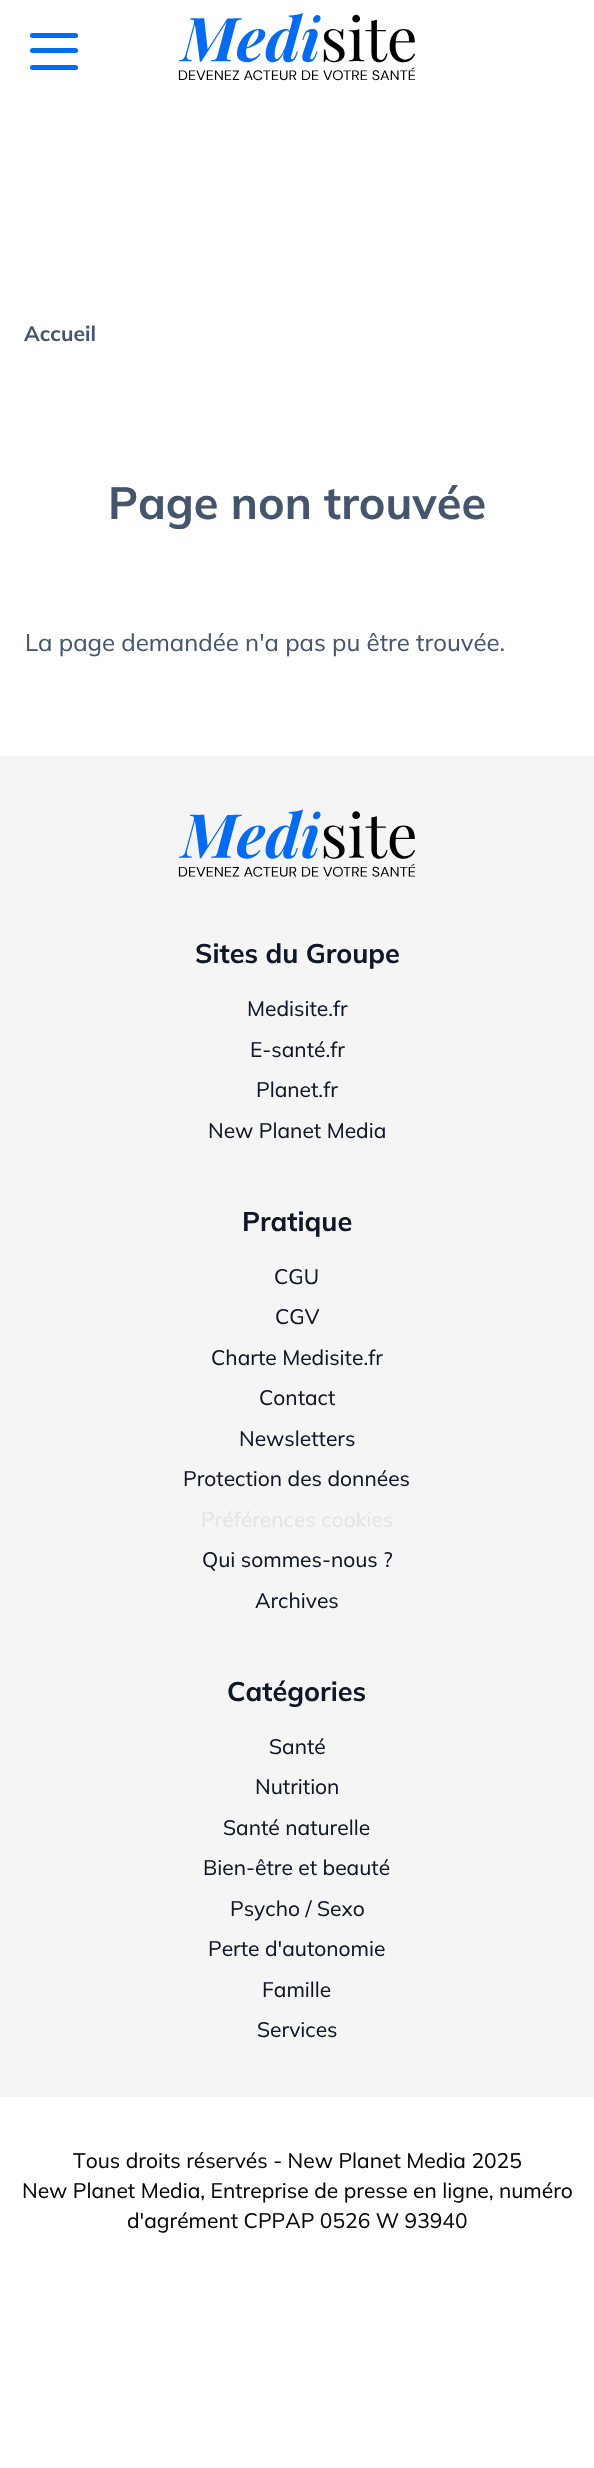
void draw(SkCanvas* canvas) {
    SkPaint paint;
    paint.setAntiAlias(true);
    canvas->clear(0xFFFFFFFF);
    paint.setColor(0xFF006CFB);
    canvas->drawRoundRect(SkRect::MakeXYWH(30, 33, 48, 5), 2.5f, 2.5f, paint);
    canvas->drawRoundRect(SkRect::MakeXYWH(30, 48, 48, 5), 2.5f, 2.5f, paint);
    canvas->drawRoundRect(SkRect::MakeXYWH(30, 65, 48, 5), 2.5f, 2.5f, paint);
    canvas->drawImageRect(SkImages::DeferredFromEncodedData(SkData::MakeFromFileName("img1.png")), SkRect::MakeXYWH(178, 13, 237, 68), SkSamplingOptions());
    SkFont font1(fontMgr->matchFamilyStyle("Mulish", SkFontStyle::Bold()), 21);
    font1.setSubpixel(true);
    paint.setColor(0xFF45556C);
    canvas->drawString("Accueil", 24, 341, font1, paint);
    SkFont font2(fontMgr->matchFamilyStyle("Mulish", SkFontStyle::Bold()), 45);
    font2.setSubpixel(true);
    canvas->drawString("Page non trouvée", 108, 519, font2, paint);
    SkFont font3(fontMgr->matchFamilyStyle("Mulish", SkFontStyle::Normal()), 24);
    font3.setSubpixel(true);
    canvas->drawString("La page demandée n'a pas pu être trouvée.", 25, 651, font3, paint);
    paint.setColor(0xFFF5F5F5);
    canvas->drawRect(SkRect::MakeXYWH(0, 756, 594, 1341), paint);
    canvas->drawImageRect(SkImages::DeferredFromEncodedData(SkData::MakeFromFileName("img2.png")), SkRect::MakeXYWH(178, 809, 237, 68), SkSamplingOptions());
    SkFont font4(fontMgr->matchFamilyStyle("Mulish", SkFontStyle::Bold()), 27);
    font4.setSubpixel(true);
    paint.setColor(0xFF101828);
    canvas->drawString("Sites du Groupe", 195, 963, font4, paint);
    SkFont font5(fontMgr->matchFamilyStyle("Mulish", SkFontStyle::Normal()), 21);
    font5.setSubpixel(true);
    canvas->drawString("Medisite.fr", 247, 1016, font5, paint);
    canvas->drawString("E-santé.fr", 250, 1057, font5, paint);
    canvas->drawString("Planet.fr", 256, 1097, font5, paint);
    canvas->drawString("New Planet Media", 208, 1138, font5, paint);
    canvas->drawString("Pratique", 242, 1231, font4, paint);
    canvas->drawString("CGU", 274, 1284, font5, paint);
    canvas->drawString("CGV", 275, 1324, font5, paint);
    canvas->drawString("Charte Medisite.fr", 211, 1365, font5, paint);
    canvas->drawString("Contact", 259, 1405, font5, paint);
    canvas->drawString("Newsletters", 239, 1446, font5, paint);
    canvas->drawString("Protection des données", 183, 1486, font5, paint);
    paint.setColor(0xFFE4E4E7);
    canvas->drawString("Préférences cookies", 201, 1527, font5, paint);
    paint.setColor(0xFF101828);
    canvas->drawString("Qui sommes-nous ?", 202, 1567, font5, paint);
    canvas->drawString("Archives", 255, 1608, font5, paint);
    canvas->drawString("Catégories", 227, 1701, font4, paint);
    canvas->drawString("Santé", 269, 1754, font5, paint);
    canvas->drawString("Nutrition", 255, 1794, font5, paint);
    canvas->drawString("Santé naturelle", 223, 1835, font5, paint);
    canvas->drawString("Bien-être et beauté", 203, 1875, font5, paint);
    canvas->drawString("Psycho / Sexo", 230, 1916, font5, paint);
    canvas->drawString("Perte d'autonomie", 208, 1956, font5, paint);
    canvas->drawString("Famille", 262, 1997, font5, paint);
    canvas->drawString("Services", 257, 2037, font5, paint);
    paint.setColor(0xFF09090B);
    canvas->drawString("Tous droits réservés - New Planet Media 2025", 73, 2168, font5, paint);
    canvas->drawString("New Planet Media, Entreprise de presse en ligne, numéro", 22, 2198, font5, paint);
    canvas->drawString("d'agrément CPPAP 0526 W 93940", 127, 2228, font5, paint);
}
